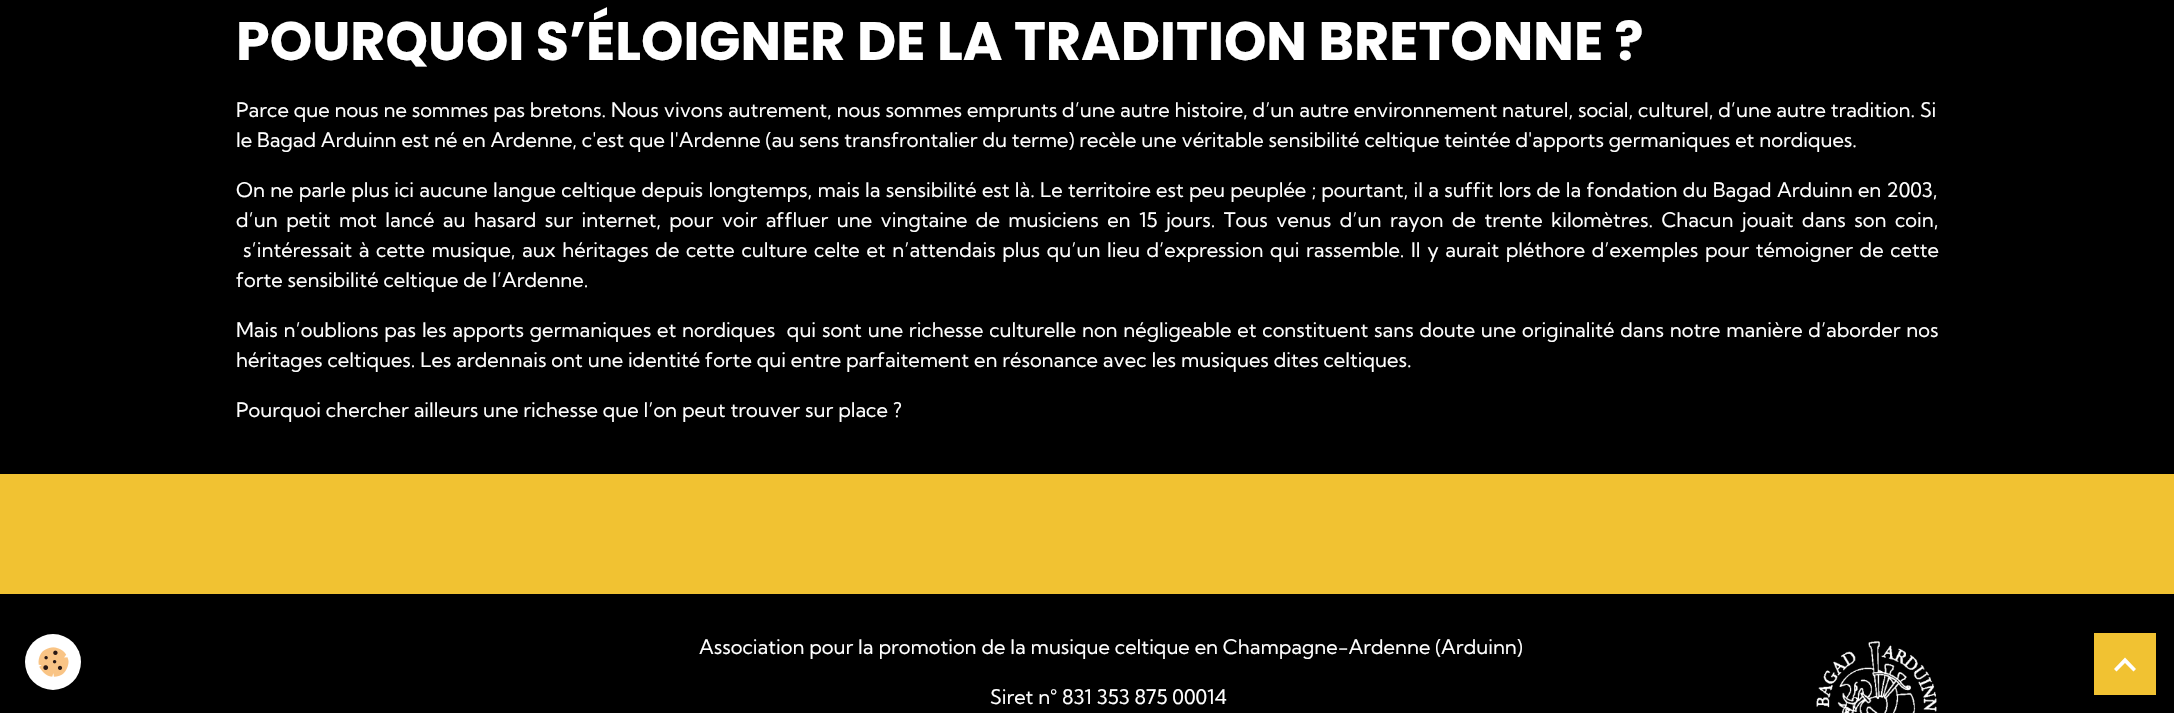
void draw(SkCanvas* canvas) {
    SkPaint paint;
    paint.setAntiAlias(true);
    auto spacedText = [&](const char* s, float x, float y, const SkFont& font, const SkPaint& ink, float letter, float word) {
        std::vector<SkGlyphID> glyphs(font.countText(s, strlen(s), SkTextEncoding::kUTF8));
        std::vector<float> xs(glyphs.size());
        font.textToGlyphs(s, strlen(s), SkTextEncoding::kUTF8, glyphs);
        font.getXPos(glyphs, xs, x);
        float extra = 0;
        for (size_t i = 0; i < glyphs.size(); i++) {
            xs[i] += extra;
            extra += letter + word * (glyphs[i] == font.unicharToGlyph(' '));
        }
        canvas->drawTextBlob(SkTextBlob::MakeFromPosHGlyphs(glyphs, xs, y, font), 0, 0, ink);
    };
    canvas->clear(0xFF000000);
    SkFont font1(fontMgr->matchFamilyStyle("Poppins", SkFontStyle::Bold()), 54);
    font1.setSubpixel(true);
    paint.setColor(0xFFFFFFFF);
    canvas->drawString("POURQUOI S’ÉLOIGNER DE LA TRADITION BRETONNE ?", 236, 60, font1, paint);
    SkFont font2(fontMgr->matchFamilyStyle("Kumbh Sans", SkFontStyle::Normal()), 20);
    font2.setSubpixel(true);
    canvas->drawString("Parce que nous ne sommes pas bretons. Nous vivons autrement, nous sommes emprunts d’une autre histoire, d’un autre environnement naturel, social, culturel, d’une autre tradition. Si", 236, 117, font2, paint);
    canvas->drawString("le Bagad Arduinn est né en Ardenne, c'est que l'Ardenne (au sens transfrontalier du terme) recèle une véritable sensibilité celtique teintée d'apports germaniques et nordiques.", 236, 147, font2, paint);
    spacedText("On ne parle plus ici aucune langue celtique depuis longtemps, mais la sensibilité est là. Le territoire est peu peuplée ; pourtant, il a suffit lors de la fondation du Bagad Arduinn en 2003,", 236, 197, font2, paint, 0, 0.4f);
    spacedText("d’un petit mot lancé au hasard sur internet, pour voir affluer une vingtaine de musiciens en 15 jours. Tous venus d’un rayon de trente kilomètres. Chacun jouait dans son coin,", 236, 227, font2, paint, 0, 3.6f);
    spacedText("s’intéressait à cette musique, aux héritages de cette culture celte et n’attendais plus qu’un lieu d’expression qui rassemble. Il y aurait pléthore d’exemples pour témoigner de cette", 243, 257, font2, paint, 0, 1.8f);
    canvas->drawString("forte sensibilité celtique de l’Ardenne.", 236, 287, font2, paint);
    spacedText("Mais n’oublions pas les apports germaniques et nordiques  qui sont une richesse culturelle non négligeable et constituent sans doute une originalité dans notre manière d’aborder nos", 236, 337, font2, paint, 0, 0.95f);
    canvas->drawString("héritages celtiques. Les ardennais ont une identité forte qui entre parfaitement en résonance avec les musiques dites celtiques.", 236, 367, font2, paint);
    canvas->drawString("Pourquoi chercher ailleurs une richesse que l’on peut trouver sur place ?", 236, 417, font2, paint);
    canvas->drawCircle(53, 662, 28, paint);
    canvas->drawImageRect(SkImages::DeferredFromEncodedData(SkData::MakeFromFileName("img1.png")), SkRect::MakeXYWH(38, 647, 31, 30), SkSamplingOptions());
    paint.setColor(0xFFF1C232);
    canvas->drawRect(SkRect::MakeXYWH(0, 474, 2174, 120), paint);
    paint.setColor(0xFFFFFFFF);
    canvas->drawString("Association pour la promotion de la musique celtique en Champagne-Ardenne (Arduinn)", 699, 654, font2, paint);
    canvas->drawImageRect(SkImages::DeferredFromEncodedData(SkData::MakeFromFileName("img2.png")), SkRect::MakeXYWH(1816, 641, 121, 72), SkSamplingOptions());
    canvas->drawString("Siret n° 831 353 875 00014", 990, 704, font2, paint);
    paint.setColor(0xFFF1C232);
    canvas->drawRect(SkRect::MakeXYWH(2094, 633, 62, 62), paint);
    paint.setColor(0xFFFFFFFF);
    canvas->drawPath(SkPathBuilder().moveTo(2125, 657.5f).lineTo(2136, 669).lineTo(2133.5f, 671.5f).lineTo(2125, 663).lineTo(2116.5f, 671.5f).lineTo(2114, 669).close().detach(), paint);
}
